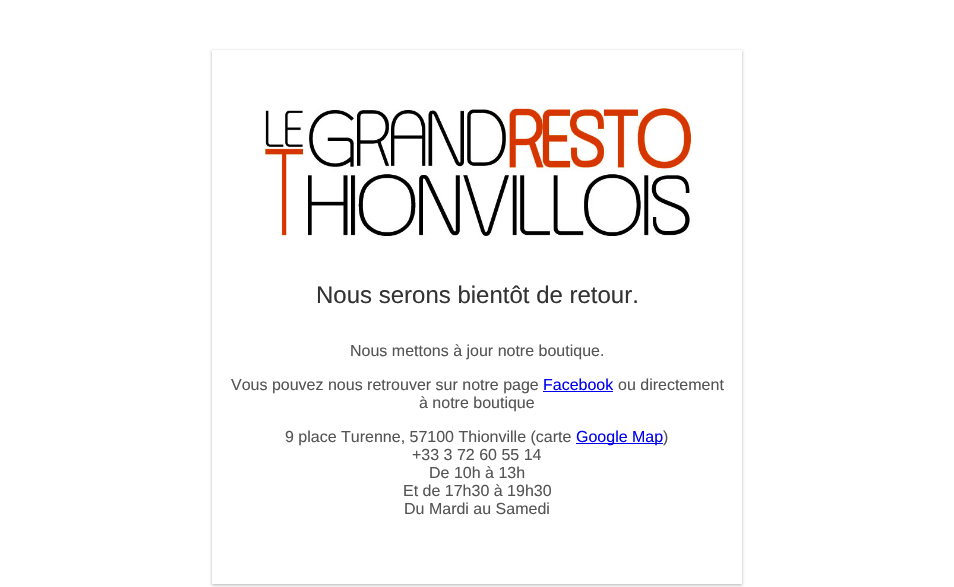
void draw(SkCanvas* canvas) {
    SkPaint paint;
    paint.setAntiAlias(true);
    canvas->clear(0xFFFFFFFF);
    canvas->save();
    canvas->clipPath(SkPathBuilder(SkPathFillType::kEvenOdd).moveTo(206, 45).lineTo(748, 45).lineTo(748, 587).lineTo(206, 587).close().moveTo(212, 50).lineTo(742, 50).lineTo(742, 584).lineTo(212, 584).close().detach(), true);
    paint.setColor(0x4D000000);
    paint.setMaskFilter(SkMaskFilter::MakeBlur(kNormal_SkBlurStyle, 1.5f));
    canvas->drawRect(SkRect::MakeXYWH(212, 51, 530, 534), paint);
    paint.setMaskFilter(nullptr);
    canvas->restore();
    canvas->drawImageRect(SkImages::DeferredFromEncodedData(SkData::MakeFromFileName("img1.png")), SkRect::MakeXYWH(265, 105, 428, 133), SkSamplingOptions());
    SkFont font1(fontMgr->matchFamilyStyle("Liberation Sans", SkFontStyle::Normal()), 24);
    font1.setSubpixel(true);
    paint.setColor(0xFF333333);
    canvas->drawString("Nous serons bientôt de retour.", 316, 303, font1, paint);
    SkFont font2(fontMgr->matchFamilyStyle("Liberation Sans", SkFontStyle::Normal()), 16);
    font2.setSubpixel(true);
    paint.setColor(0xFF555454);
    canvas->drawString("Nous mettons à jour notre boutique.", 350, 356, font2, paint);
    canvas->drawString("Vous pouvez nous retrouver sur notre page", 231, 390, font2, paint);
    paint.setColor(0xFF0000EE);
    canvas->drawString("Facebook", 543, 390, font2, paint);
    canvas->drawRect(SkRect::MakeXYWH(543, 391, 70, 1), paint);
    paint.setColor(0xFF555454);
    canvas->drawString("ou directement", 618, 390, font2, paint);
    canvas->drawString("à notre boutique", 419, 408, font2, paint);
    canvas->drawString("9 place Turenne, 57100 Thionville (carte", 285, 442, font2, paint);
    paint.setColor(0xFF0000EE);
    canvas->drawRect(SkRect::MakeXYWH(576, 443, 87, 1), paint);
    canvas->drawString("Google Map", 576, 442, font2, paint);
    paint.setColor(0xFF555454);
    canvas->drawString(")", 663, 442, font2, paint);
    canvas->drawString("+33 3 72 60 55 14", 412, 460, font2, paint);
    canvas->drawString("De 10h à 13h", 429, 478, font2, paint);
    canvas->drawString("Et de 17h30 à 19h30", 403, 496, font2, paint);
    canvas->drawString("Du Mardi au Samedi", 404, 514, font2, paint);
}
